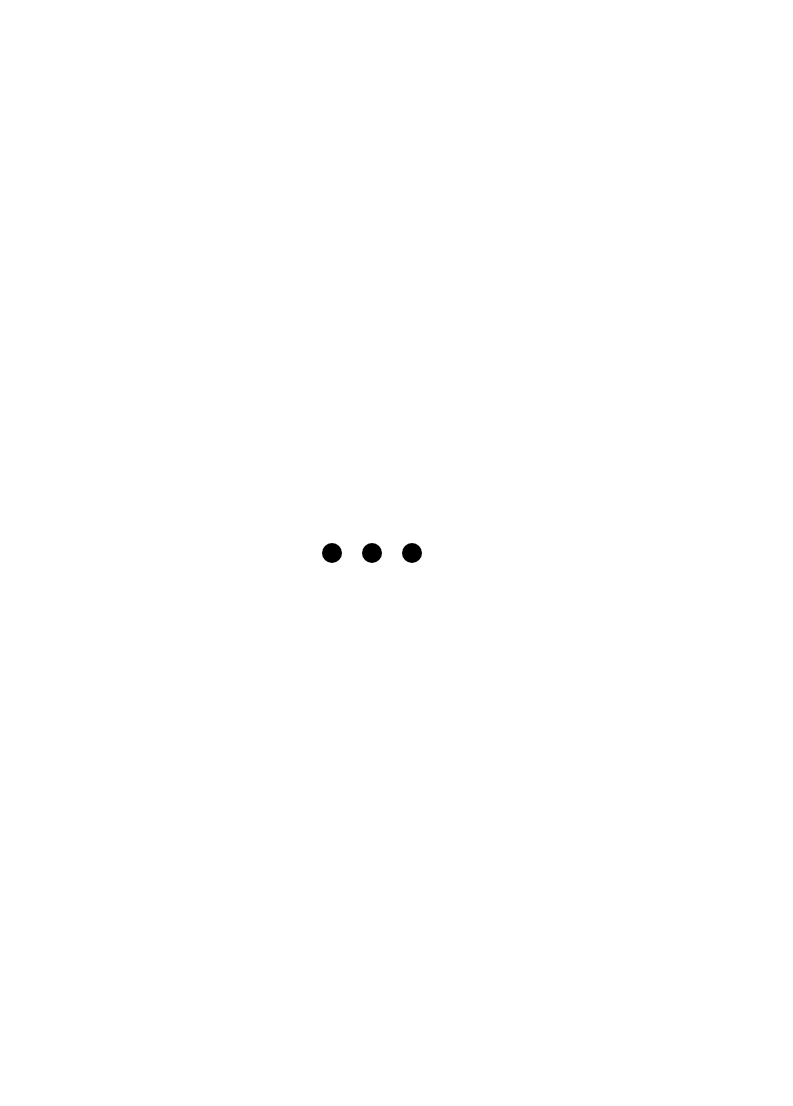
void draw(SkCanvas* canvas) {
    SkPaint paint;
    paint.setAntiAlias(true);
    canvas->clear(0xFFFFFFFF);
    paint.setColor(0xFF000000);
    canvas->drawCircle(332, 553, 10, paint);
    canvas->drawCircle(372, 553, 10, paint);
    canvas->drawCircle(412, 553, 10, paint);
}
